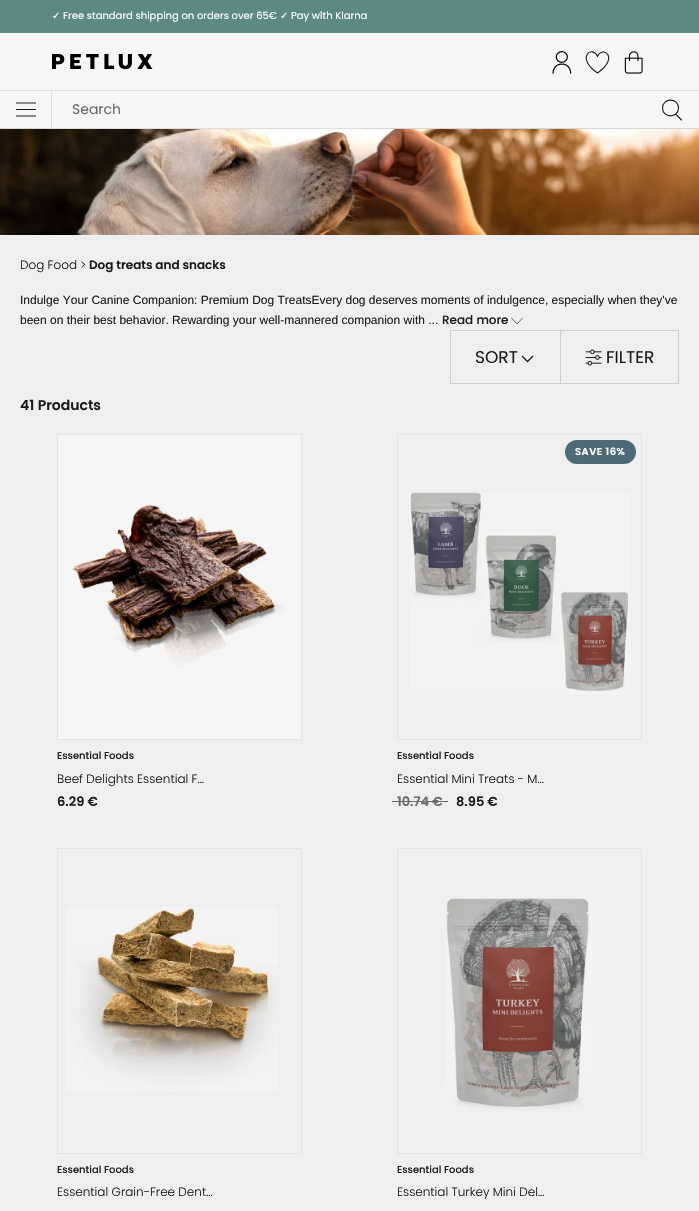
void draw(SkCanvas* canvas) {
    SkPaint paint;
    paint.setAntiAlias(true);
    auto spacedText = [&](const char* s, float x, float y, const SkFont& font, const SkPaint& ink, float letter, float word) {
        std::vector<SkGlyphID> glyphs(font.countText(s, strlen(s), SkTextEncoding::kUTF8));
        std::vector<float> xs(glyphs.size());
        font.textToGlyphs(s, strlen(s), SkTextEncoding::kUTF8, glyphs);
        font.getXPos(glyphs, xs, x);
        float extra = 0;
        for (size_t i = 0; i < glyphs.size(); i++) {
            xs[i] += extra;
            extra += letter + word * (glyphs[i] == font.unicharToGlyph(' '));
        }
        canvas->drawTextBlob(SkTextBlob::MakeFromPosHGlyphs(glyphs, xs, y, font), 0, 0, ink);
    };
    canvas->clear(0xFFEFEFEF);
    paint.setColor(0xFF5C8981);
    canvas->drawRect(SkRect::MakeXYWH(0, 0, 699, 33), paint);
    SkFont font1(fontMgr->matchFamilyStyle("DejaVu Sans", SkFontStyle::Normal()), 10);
    font1.setSubpixel(true);
    paint.setColor(0xFFFFFFFF);
    canvas->drawString("✓", 52, 19, font1, paint);
    SkFont font2(fontMgr->matchFamilyStyle("Poppins", SkFontStyle::Normal()), 10);
    font2.setSubpixel(true);
    canvas->drawString("Free standard shipping on orders over 65€", 63, 19, font2, paint);
    canvas->drawString("✓", 280, 19, font1, paint);
    canvas->drawString("Pay with Klarna", 291, 19, font2, paint);
    paint.setColor(0xFFF6F6F6);
    canvas->drawRect(SkRect::MakeXYWH(0, 33, 699, 95), paint);
    paint.setColor(0xFFD5D5D5);
    canvas->drawRect(SkRect::MakeXYWH(0, 128, 699, 1), paint);
    canvas->drawImageRect(SkImages::DeferredFromEncodedData(SkData::MakeFromFileName("img1.png")), SkRect::MakeXYWH(52, 54, 101, 16), SkSamplingOptions());
    canvas->drawImageRect(SkImages::DeferredFromEncodedData(SkData::MakeFromFileName("img2.png")), SkRect::MakeXYWH(552, 51, 20, 23), SkSamplingOptions());
    paint.setStyle(SkPaint::kStroke_Style);
    paint.setStrokeWidth(1.1f);
    paint.setStrokeJoin(SkPaint::kRound_Join);
    paint.setColor(0xFF1C1B1B);
    canvas->drawPath(SkPathBuilder().moveTo(597.5f, 56.5f).cubicTo(602.5f, 45, 620, 57.5f, 597.5f, 73).cubicTo(575, 57.5f, 592.5f, 44.5f, 597.5f, 56.5f).close().detach(), paint);
    canvas->drawImageRect(SkImages::DeferredFromEncodedData(SkData::MakeFromFileName("img3.png")), SkRect::MakeXYWH(624, 51, 19, 23), SkSamplingOptions());
    paint.setStyle(SkPaint::kFill_Style);
    paint.setColor(0xFFDEDEDE);
    canvas->drawRect(SkRect::MakeXYWH(0, 90, 699, 1), paint);
    canvas->drawRect(SkRect::MakeXYWH(51, 91, 1, 38), paint);
    canvas->drawImageRect(SkImages::DeferredFromEncodedData(SkData::MakeFromFileName("img4.png")), SkRect::MakeXYWH(16, 102, 20, 15), SkSamplingOptions());
    canvas->drawRect(SkRect::MakeXYWH(52, 128, 311, 1), paint);
    SkFont font3(fontMgr->matchFamilyStyle("Poppins", SkFontStyle::Normal()), 14);
    font3.setSubpixel(true);
    paint.setColor(0xFF6A6A6A);
    canvas->drawString("Search", 72, 114, font3, paint);
    paint.setStyle(SkPaint::kStroke_Style);
    paint.setStrokeCap(SkPaint::kRound_Cap);
    paint.setStrokeJoin(SkPaint::kMiter_Join);
    paint.setColor(0xFF1C1B1B);
    canvas->drawPath(SkPathBuilder().moveTo(676, 114.5f).lineTo(681.5f, 120).moveTo(678.5f, 108).cubicTo(678.5f, 118.5f, 662.5f, 118.5f, 662.5f, 108).cubicTo(662.5f, 97.5f, 678.5f, 97.5f, 678.5f, 108).close().detach(), paint);
    canvas->drawImageRect(SkImages::DeferredFromEncodedData(SkData::MakeFromFileName("img5.png")), SkRect::MakeXYWH(0, 129, 699, 106), SkSamplingOptions());
    SkFont font4(fontMgr->matchFamilyStyle("Poppins", SkFontStyle(300, SkFontStyle::kNormal_Width, SkFontStyle::kUpright_Slant)), 12);
    font4.setSubpixel(true);
    paint.setStyle(SkPaint::kFill_Style);
    canvas->drawString("Dog Food >", 20, 269, font4, paint);
    SkFont font5(fontMgr->matchFamilyStyle("Poppins", SkFontStyle(600, SkFontStyle::kNormal_Width, SkFontStyle::kUpright_Slant)), 12);
    font5.setSubpixel(true);
    canvas->drawString("Dog treats and snacks", 89, 269, font5, paint);
    SkFont font6(fontMgr->matchFamilyStyle("Liberation Sans", SkFontStyle::Normal()), 12);
    font6.setSubpixel(true);
    canvas->drawString("Indulge Your Canine Companion: Premium Dog TreatsEvery dog deserves moments of indulgence, especially when they've", 20, 304, font6, paint);
    canvas->drawString("been on their best behavior. Rewarding your well-mannered companion with ...", 20, 324, font6, paint);
    SkFont font7(fontMgr->matchFamilyStyle("Poppins", SkFontStyle(500, SkFontStyle::kNormal_Width, SkFontStyle::kUpright_Slant)), 12);
    font7.setSubpixel(true);
    canvas->drawString("Read more", 442, 324, font7, paint);
    paint.setStyle(SkPaint::kStroke_Style);
    paint.setStrokeWidth(0.7f);
    paint.setStrokeCap(SkPaint::kButt_Cap);
    canvas->drawPath(SkPathBuilder().moveTo(511.5f, 318).lineTo(517, 324).lineTo(522.5f, 318).detach(), paint);
    paint.setStyle(SkPaint::kFill_Style);
    paint.setColor(0xFFCFCFCF);
    canvas->drawRect(SkRect::MakeXYWH(450, 330, 110, 1), paint);
    canvas->drawRect(SkRect::MakeXYWH(450, 383, 110, 1), paint);
    canvas->drawRect(SkRect::MakeXYWH(450, 330, 1, 54), paint);
    SkFont font8(fontMgr->matchFamilyStyle("Poppins", SkFontStyle::Normal()), 17);
    font8.setSubpixel(true);
    paint.setColor(0xFF1C1B1B);
    canvas->drawString("SORT", 475, 363, font8, paint);
    paint.setStyle(SkPaint::kStroke_Style);
    paint.setStrokeWidth(1.3f);
    paint.setStrokeCap(SkPaint::kSquare_Cap);
    canvas->drawPath(SkPathBuilder().moveTo(532.5f, 356.5f).lineTo(527.5f, 361.5f).lineTo(522.5f, 356.5f).detach(), paint);
    paint.setStrokeWidth(1);
    paint.setStrokeCap(SkPaint::kButt_Cap);
    paint.setColor(0xFFCFCFCF);
    canvas->drawRect(SkRect::MakeXYWH(560.5f, 330.5f, 118, 53), paint);
    canvas->drawImageRect(SkImages::DeferredFromEncodedData(SkData::MakeFromFileName("img6.png")), SkRect::MakeXYWH(585, 349, 17, 17), SkSamplingOptions());
    paint.setStyle(SkPaint::kFill_Style);
    paint.setColor(0xFF1C1B1B);
    canvas->drawString("FILTER", 606, 363, font8, paint);
    SkFont font9(fontMgr->matchFamilyStyle("Poppins", SkFontStyle(600, SkFontStyle::kNormal_Width, SkFontStyle::kUpright_Slant)), 14);
    font9.setSubpixel(true);
    canvas->drawString("41 Products", 20, 410, font9, paint);
    paint.setStyle(SkPaint::kStroke_Style);
    paint.setColor(0xFFE3E3E3);
    canvas->drawRect(SkRect::MakeXYWH(57.5f, 434.5f, 244, 305), paint);
    canvas->drawImageRect(SkImages::DeferredFromEncodedData(SkData::MakeFromFileName("img7.png")), SkRect::MakeXYWH(58, 435, 243, 304), SkSamplingOptions());
    SkFont font10(fontMgr->matchFamilyStyle("Poppins", SkFontStyle(500, SkFontStyle::kNormal_Width, SkFontStyle::kUpright_Slant)), 10);
    font10.setSubpixel(true);
    paint.setStyle(SkPaint::kFill_Style);
    paint.setColor(0xFF1C1B1B);
    canvas->drawString("Essential Foods", 57, 759, font10, paint);
    canvas->drawString("Beef Delights Essential F...", 57, 783, font4, paint);
    SkFont font11(fontMgr->matchFamilyStyle("Poppins", SkFontStyle(600, SkFontStyle::kNormal_Width, SkFontStyle::kUpright_Slant)), 13);
    font11.setSubpixel(true);
    canvas->drawString("6.29 €", 57, 806, font11, paint);
    paint.setStyle(SkPaint::kStroke_Style);
    paint.setColor(0xFFE3E3E3);
    canvas->drawRect(SkRect::MakeXYWH(397.5f, 434.5f, 244, 305), paint);
    canvas->drawImageRect(SkImages::DeferredFromEncodedData(SkData::MakeFromFileName("img8.png")), SkRect::MakeXYWH(409, 492, 222, 203), SkSamplingOptions());
    paint.setStyle(SkPaint::kFill_Style);
    paint.setColor(0xFF4E6A76);
    canvas->drawRoundRect(SkRect::MakeXYWH(565, 440, 71, 24), 12, 12, paint);
    SkFont font12(fontMgr->matchFamilyStyle("Poppins", SkFontStyle(600, SkFontStyle::kNormal_Width, SkFontStyle::kUpright_Slant)), 10);
    font12.setSubpixel(true);
    paint.setColor(0xFFFFFFFF);
    spacedText("SAVE 16%", 575, 455, font12, paint, 0.5f, 0);
    paint.setColor(0xFF1C1B1B);
    canvas->drawString("Essential Foods", 397, 759, font10, paint);
    canvas->drawString("Essential Mini Treats - M...", 397, 783, font4, paint);
    paint.setColor(0xFF6A6A6A);
    canvas->drawString("10.74 €", 397, 806, font11, paint);
    canvas->drawRect(SkRect::MakeXYWH(392, 801, 56, 1), paint);
    paint.setColor(0xFF1C1B1B);
    canvas->drawString("8.95 €", 456, 806, font11, paint);
    paint.setStyle(SkPaint::kStroke_Style);
    paint.setColor(0xFFE3E3E3);
    canvas->drawRect(SkRect::MakeXYWH(57.5f, 848.5f, 244, 305), paint);
    canvas->drawImageRect(SkImages::DeferredFromEncodedData(SkData::MakeFromFileName("img9.png")), SkRect::MakeXYWH(66, 907, 212, 185), SkSamplingOptions());
    paint.setStyle(SkPaint::kFill_Style);
    paint.setColor(0xFF1C1B1B);
    canvas->drawString("Essential Foods", 57, 1173, font10, paint);
    canvas->drawString("Essential Grain-Free Dent...", 57, 1196, font4, paint);
    paint.setStyle(SkPaint::kStroke_Style);
    paint.setColor(0xFFE3E3E3);
    canvas->drawRect(SkRect::MakeXYWH(397.5f, 848.5f, 244, 305), paint);
    canvas->drawImageRect(SkImages::DeferredFromEncodedData(SkData::MakeFromFileName("img10.png")), SkRect::MakeXYWH(446, 897, 146, 213), SkSamplingOptions());
    paint.setStyle(SkPaint::kFill_Style);
    paint.setColor(0xFF1C1B1B);
    canvas->drawString("Essential Foods", 397, 1173, font10, paint);
    canvas->drawString("Essential Turkey Mini Del...", 397, 1196, font4, paint);
}
